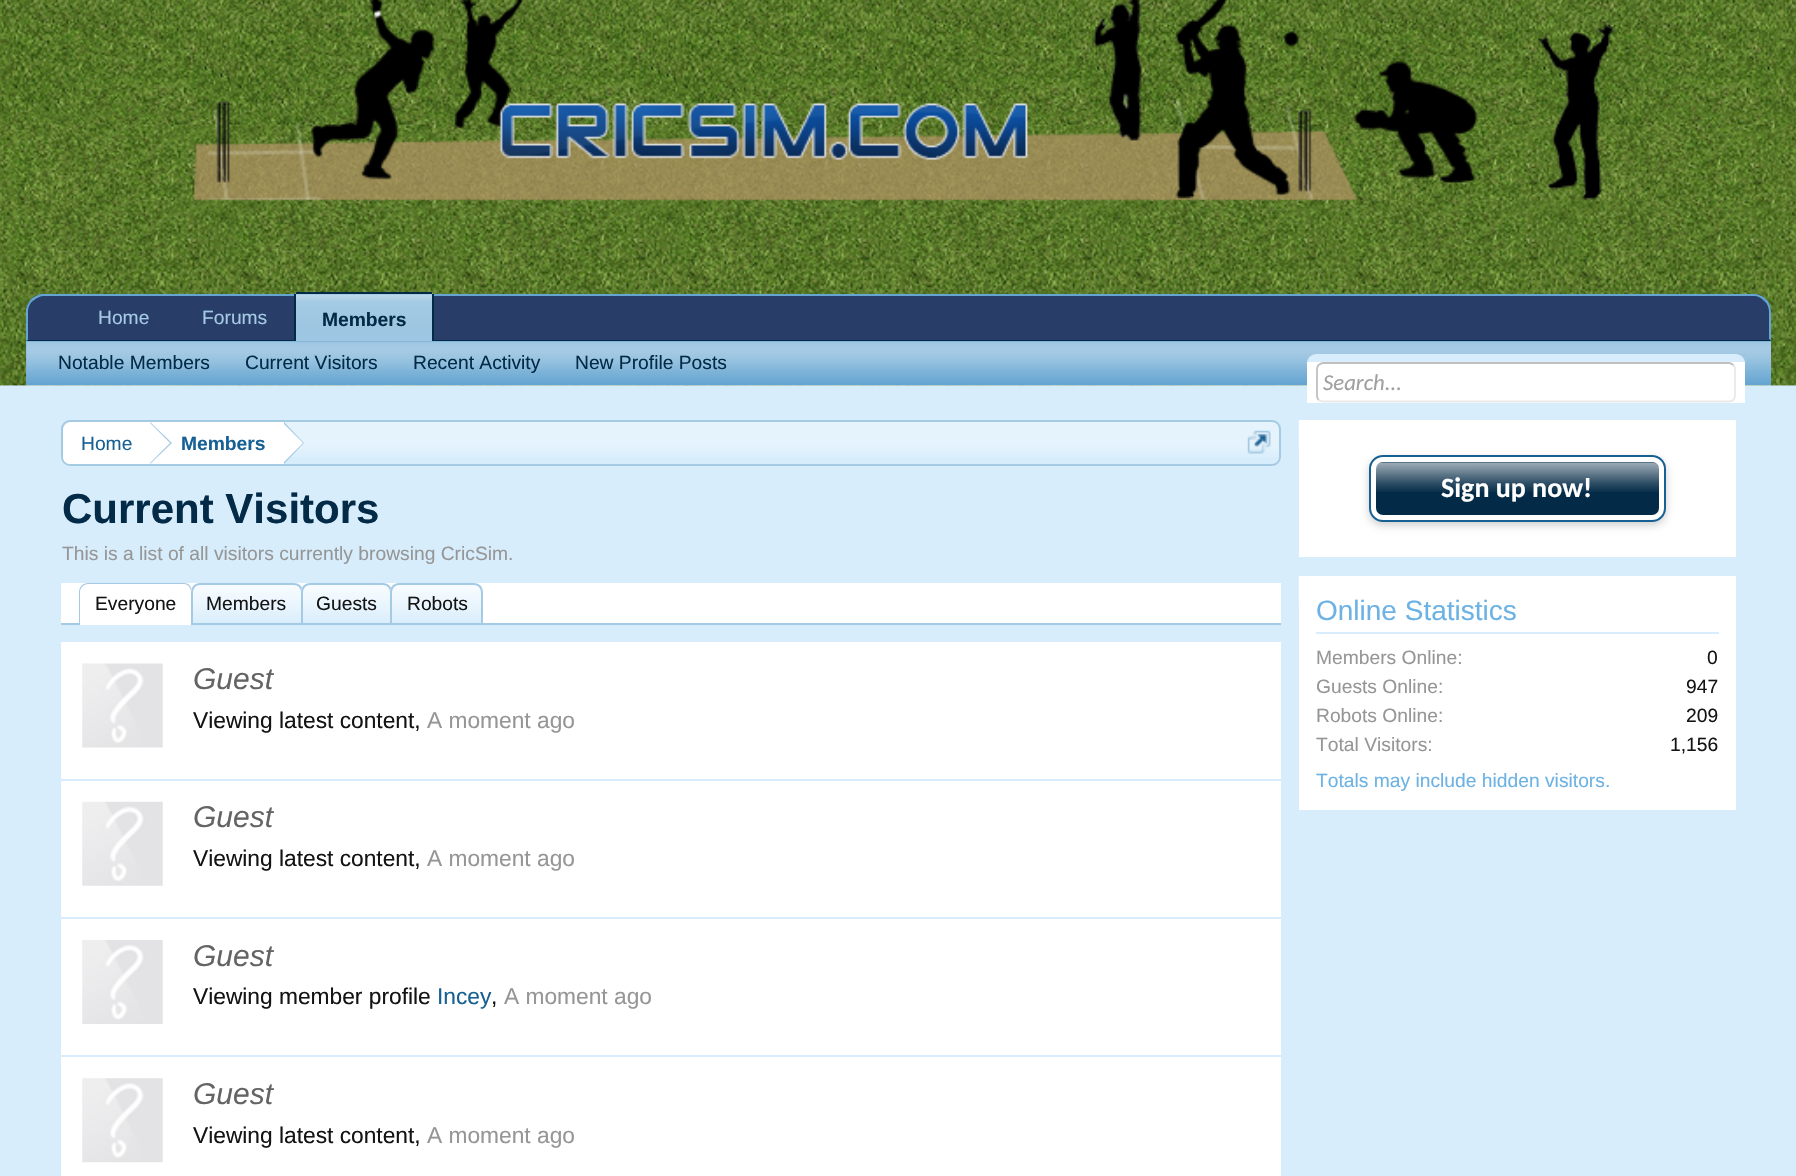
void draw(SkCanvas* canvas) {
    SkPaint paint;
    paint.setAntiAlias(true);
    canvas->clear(0xFFD7EDFC);
    canvas->drawImageRect(SkImages::DeferredFromEncodedData(SkData::MakeFromFileName("img5.png")), SkRect::MakeXYWH(0, 385, 1796, 1), SkSamplingOptions());
    paint.setColor(0xFFD7EDFC);
    canvas->drawRect(SkRect::MakeXYWH(26, 385, 1745, 1), paint);
    canvas->drawImageRect(SkImages::DeferredFromEncodedData(SkData::MakeFromFileName("img1.png")), SkRect::MakeXYWH(0, 0, 1796, 386), SkSamplingOptions());
    canvas->drawImageRect(SkImages::DeferredFromEncodedData(SkData::MakeFromFileName("img2.png")), SkRect::MakeXYWH(193, 0, 1423, 201), SkSamplingOptions());
    paint.setColor(0xFF283E69);
    canvas->drawPath(SkPathBuilder().moveTo(44, 294).lineTo(1753, 294).cubicTo(1763, 294, 1771, 302, 1771, 312).lineTo(1771, 341).lineTo(26, 341).lineTo(26, 312).cubicTo(26, 302, 34, 294, 44, 294).close().detach(), paint);
    paint.setColor(0xFF65A5D1);
    canvas->drawPath(SkPathBuilder().moveTo(44, 294).cubicTo(39, 294, 35, 296, 31, 299).lineTo(33, 301).cubicTo(36, 298, 40, 296, 44, 296).lineTo(1754, 296).cubicTo(1758, 296, 1762, 298, 1764, 301).lineTo(1766, 299).cubicTo(1763, 296, 1758, 294, 1754, 294).close().detach(), paint);
    canvas->drawPath(SkPathBuilder().moveTo(1771, 341).lineTo(1771, 312).cubicTo(1771, 307, 1769, 302, 1766, 299).lineTo(1764, 301).cubicTo(1767, 303, 1769, 307, 1769, 312).lineTo(1769, 339).close().detach(), paint);
    paint.setColor(0xFF032A46);
    canvas->drawPath(SkPathBuilder().moveTo(1771, 341).lineTo(26, 341).lineTo(28, 340).lineTo(1769, 340).lineTo(1769, 339).close().detach(), paint);
    paint.setColor(0xFF65A5D1);
    canvas->drawPath(SkPathBuilder().moveTo(26, 309).cubicTo(27, 305, 29, 302, 31, 299).lineTo(33, 301).cubicTo(30, 303, 28, 307, 28, 312).lineTo(28, 340).lineTo(26, 341).close().detach(), paint);
    SkFont font1(fontMgr->matchFamilyStyle("Liberation Sans", SkFontStyle::Normal()), 19.25f);
    font1.setSubpixel(true);
    paint.setColor(0xFFA5CAE4);
    canvas->drawString("Home", 98, 324, font1, paint);
    canvas->drawString("Forums", 202, 324, font1, paint);
    paint.setColor(0xFF65A5D1);
    canvas->drawPath(SkPathBuilder().moveTo(298, 292).lineTo(430, 292).cubicTo(432, 292, 434, 294, 434, 296).lineTo(434, 341).lineTo(294, 341).lineTo(294, 296).cubicTo(294, 294, 296, 292, 298, 292).close().detach(), paint);
    canvas->drawImageRect(SkImages::DeferredFromEncodedData(SkData::MakeFromFileName("img3.png")), SkRect::MakeXYWH(296, 294, 136, 47), SkSamplingOptions());
    paint.setColor(0xFF032A46);
    canvas->drawRect(SkRect::MakeXYWH(296, 292, 136, 2), paint);
    canvas->drawRect(SkRect::MakeXYWH(432, 294, 2, 47), paint);
    canvas->drawRect(SkRect::MakeXYWH(294, 294, 2, 47), paint);
    SkFont font2(fontMgr->matchFamilyStyle("Liberation Sans", SkFontStyle::Bold()), 19.25f);
    font2.setSubpixel(true);
    canvas->drawString("Members", 322, 326, font2, paint);
    paint.setColor(0xFF65A5D1);
    canvas->drawRect(SkRect::MakeXYWH(26, 341, 1745, 44), paint);
    canvas->drawImageRect(SkImages::DeferredFromEncodedData(SkData::MakeFromFileName("img4.png")), SkRect::MakeXYWH(26, 341, 1745, 42), SkSamplingOptions());
    paint.setColor(0xFF032A46);
    canvas->drawString("Notable Members", 58, 369, font1, paint);
    canvas->drawString("Current Visitors", 245, 369, font1, paint);
    canvas->drawString("Recent Activity", 413, 369, font1, paint);
    canvas->drawString("New Profile Posts", 575, 369, font1, paint);
    paint.setColor(0xFFD7EDFC);
    canvas->drawRoundRect(SkRect::MakeXYWH(1307, 354, 438, 49), 9, 9, paint);
    paint.setColor(0xFFFFFFFF);
    canvas->drawRect(SkRect::MakeXYWH(1307, 362, 438, 41), paint);
    paint.setStyle(SkPaint::kStroke_Style);
    paint.setStrokeWidth(1.8f);
    paint.setColor(0xFFE9E9E9);
    canvas->drawPath(SkPathBuilder().moveTo(1733.5f, 365).cubicTo(1734.5f, 366, 1735, 367.5f, 1735, 369).lineTo(1735, 395.5f).cubicTo(1735, 397, 1734.5f, 398.5f, 1733.5f, 400).cubicTo(1732, 401, 1730.5f, 401.5f, 1729, 401.5f).lineTo(1323, 401.5f).cubicTo(1321.5f, 401.5f, 1320, 401, 1318.5f, 400).detach(), paint);
    paint.setColor(0xFFC0C0C0);
    canvas->drawPath(SkPathBuilder().moveTo(1318.5f, 400).cubicTo(1317.5f, 398.5f, 1317, 397, 1317, 395.5f).lineTo(1317, 369).cubicTo(1317, 367.5f, 1317.5f, 366, 1318.5f, 365).cubicTo(1320, 364, 1321.5f, 363, 1323, 363).lineTo(1729, 363).cubicTo(1730.5f, 363, 1732, 364, 1733.5f, 365).detach(), paint);
    SkFont font3(fontMgr->matchFamilyStyle("Carlito", SkFontStyle::Italic()), 22.75f);
    font3.setSubpixel(true);
    paint.setStyle(SkPaint::kFill_Style);
    paint.setColor(0xFFA0A0A0);
    canvas->drawString("Search...", 1323, 390, font3, paint);
    canvas->drawImageRect(SkImages::DeferredFromEncodedData(SkData::MakeFromFileName("img6.png")), SkRect::MakeXYWH(61, 422, 1220, 35), SkSamplingOptions());
    paint.setStyle(SkPaint::kStroke_Style);
    paint.setStrokeWidth(2);
    paint.setColor(0xFFA5CAE4);
    canvas->drawRoundRect(SkRect::MakeXYWH(62, 421, 1218, 44), 8, 8, paint);
    canvas->save();
    canvas->clipPath(SkPathBuilder().moveTo(70, 422).lineTo(1272, 422).cubicTo(1276, 422, 1279, 425, 1279, 429).lineTo(1279, 457).cubicTo(1279, 461, 1276, 464, 1272, 464).lineTo(70, 464).cubicTo(66, 464, 63, 461, 63, 457).lineTo(63, 429).cubicTo(63, 425, 66, 422, 70, 422).close().detach(), true);
    paint.setStyle(SkPaint::kFill_Style);
    paint.setColor(0xFFFFFFFF);
    canvas->drawPath(SkPathBuilder().moveTo(72, 422).lineTo(151, 422).lineTo(151, 466).lineTo(72, 466).cubicTo(67, 466, 63, 462, 63, 457).lineTo(63, 431).cubicTo(63, 426, 67, 422, 72, 422).close().detach(), paint);
    canvas->restore();
    paint.setColor(0xFF176093);
    canvas->drawString("Home", 81, 450, font1, paint);
    paint.setColor(0xFFFFFFFF);
    canvas->drawRect(SkRect::MakeXYWH(151, 422, 133, 42), paint);
    paint.setColor(0xFFA5CAE4);
    canvas->drawPath(SkPathBuilder().moveTo(150, 464).lineTo(150, 422).lineTo(172, 443).close().detach(), paint);
    paint.setColor(0xFFFFFFFF);
    canvas->drawPath(SkPathBuilder().moveTo(149, 464).lineTo(149, 422).lineTo(170, 443).close().detach(), paint);
    paint.setColor(0xFF176093);
    canvas->drawString("Members", 181, 450, font2, paint);
    paint.setColor(0xFFA5CAE4);
    canvas->drawPath(SkPathBuilder().moveTo(284, 464).lineTo(284, 422).lineTo(304, 443).close().detach(), paint);
    paint.setColor(0xFFFFFFFF);
    canvas->drawPath(SkPathBuilder().moveTo(282, 464).lineTo(282, 422).lineTo(303, 443).close().detach(), paint);
    canvas->drawImageRect(SkImages::DeferredFromEncodedData(SkData::MakeFromFileName("img7.png")), SkRect::MakeXYWH(1247, 430, 24, 24), SkSamplingOptions());
    SkFont font4(fontMgr->matchFamilyStyle("Liberation Sans", SkFontStyle::Bold()), 42);
    font4.setSubpixel(true);
    paint.setColor(0xFF032A46);
    canvas->drawString("Current Visitors", 62, 523, font4, paint);
    paint.setColor(0xFF969696);
    canvas->drawString("This is a list of all visitors currently browsing CricSim.", 62, 560, font1, paint);
    paint.setColor(0xFFFFFFFF);
    canvas->drawRect(SkRect::MakeXYWH(61, 583, 1220, 40), paint);
    paint.setColor(0xFFA5CAE4);
    canvas->drawRect(SkRect::MakeXYWH(61, 623, 1220, 2), paint);
    paint.setColor(0xFFFFFFFF);
    canvas->drawPath(SkPathBuilder().moveTo(88, 583).lineTo(184, 583).cubicTo(189, 583, 193, 587, 193, 592).lineTo(193, 625).lineTo(79, 625).lineTo(79, 592).cubicTo(79, 587, 83, 583, 88, 583).close().detach(), paint);
    paint.setColor(0xFFA5CAE4);
    canvas->drawPath(SkPathBuilder(SkPathFillType::kEvenOdd).moveTo(88, 583).lineTo(184, 583).cubicTo(189, 583, 192, 587, 192, 592).lineTo(192, 625).lineTo(79, 625).lineTo(79, 592).cubicTo(79, 587, 83, 583, 88, 583).close().moveTo(88, 584).lineTo(184, 584).cubicTo(188, 584, 191, 588, 191, 592).lineTo(191, 625).lineTo(80, 625).lineTo(80, 592).cubicTo(80, 588, 84, 584, 88, 584).close().detach(), paint);
    paint.setColor(0xFF141414);
    canvas->drawString("Everyone", 95, 610, font1, paint);
    paint.setColor(0xFFD7EDFC);
    canvas->drawPath(SkPathBuilder().moveTo(200, 583).lineTo(294, 583).cubicTo(299, 583, 303, 587, 303, 592).lineTo(303, 625).lineTo(191, 625).lineTo(191, 592).cubicTo(191, 587, 195, 583, 200, 583).close().detach(), paint);
    canvas->drawImageRect(SkImages::DeferredFromEncodedData(SkData::MakeFromFileName("img8.png")), SkRect::MakeXYWH(191, 584, 111, 38), SkSamplingOptions());
    paint.setStyle(SkPaint::kStroke_Style);
    paint.setColor(0xFFA5CAE4);
    canvas->drawPath(SkPathBuilder().moveTo(200, 584).lineTo(294, 584).cubicTo(298.5f, 584, 302, 587.5f, 302, 592).lineTo(302, 624).lineTo(192, 624).lineTo(192, 592).cubicTo(192, 587.5f, 195.5f, 584, 200, 584).close().detach(), paint);
    paint.setStyle(SkPaint::kFill_Style);
    paint.setColor(0xFF141414);
    canvas->drawString("Members", 206, 610, font1, paint);
    paint.setColor(0xFFD7EDFC);
    canvas->drawPath(SkPathBuilder().moveTo(310, 583).lineTo(383, 583).cubicTo(388, 583, 392, 587, 392, 592).lineTo(392, 625).lineTo(301, 625).lineTo(301, 592).cubicTo(301, 587, 305, 583, 310, 583).close().detach(), paint);
    canvas->drawImageRect(SkImages::DeferredFromEncodedData(SkData::MakeFromFileName("img9.png")), SkRect::MakeXYWH(301, 584, 90, 38), SkSamplingOptions());
    paint.setStyle(SkPaint::kStroke_Style);
    paint.setColor(0xFFA5CAE4);
    canvas->drawPath(SkPathBuilder().moveTo(310, 584).lineTo(383, 584).cubicTo(387.5f, 584, 391, 587.5f, 391, 592).lineTo(391, 624).lineTo(302, 624).lineTo(302, 592).cubicTo(302, 587.5f, 305.5f, 584, 310, 584).close().detach(), paint);
    paint.setStyle(SkPaint::kFill_Style);
    paint.setColor(0xFF141414);
    canvas->drawString("Guests", 316, 610, font1, paint);
    paint.setColor(0xFFD7EDFC);
    canvas->drawPath(SkPathBuilder().moveTo(399, 583).lineTo(474, 583).cubicTo(479, 583, 483, 587, 483, 592).lineTo(483, 625).lineTo(390, 625).lineTo(390, 592).cubicTo(390, 587, 394, 583, 399, 583).close().detach(), paint);
    canvas->drawImageRect(SkImages::DeferredFromEncodedData(SkData::MakeFromFileName("img10.png")), SkRect::MakeXYWH(390, 584, 93, 38), SkSamplingOptions());
    paint.setStyle(SkPaint::kStroke_Style);
    paint.setColor(0xFFA5CAE4);
    canvas->drawPath(SkPathBuilder().moveTo(399, 584).lineTo(474, 584).cubicTo(478.5f, 584, 482, 587.5f, 482, 592).lineTo(482, 624).lineTo(391, 624).lineTo(391, 592).cubicTo(391, 587.5f, 394.5f, 584, 399, 584).close().detach(), paint);
    paint.setStyle(SkPaint::kFill_Style);
    paint.setColor(0xFF141414);
    canvas->drawString("Robots", 407, 610, font1, paint);
    paint.setColor(0xFFFFFFFF);
    canvas->drawRect(SkRect::MakeXYWH(61, 642, 1220, 137), paint);
    canvas->drawImageRect(SkImages::DeferredFromEncodedData(SkData::MakeFromFileName("img11.png")), SkRect::MakeXYWH(82, 663, 81, 85), SkSamplingOptions());
    SkFont font5(fontMgr->matchFamilyStyle("Liberation Sans", SkFontStyle::Italic()), 30);
    font5.setSubpixel(true);
    paint.setColor(0xFF646464);
    canvas->drawString("Guest", 193, 689, font5, paint);
    SkFont font6(fontMgr->matchFamilyStyle("Liberation Sans", SkFontStyle::Normal()), 22.75f);
    font6.setSubpixel(true);
    paint.setColor(0xFF141414);
    canvas->drawString("Viewing latest content,", 193, 728, font6, paint);
    paint.setColor(0xFF969696);
    canvas->drawString("A moment ago", 427, 728, font6, paint);
    paint.setColor(0xFFFFFFFF);
    canvas->drawRect(SkRect::MakeXYWH(61, 781, 1220, 136), paint);
    canvas->drawImageRect(SkImages::DeferredFromEncodedData(SkData::MakeFromFileName("img12.png")), SkRect::MakeXYWH(82, 801, 81, 85), SkSamplingOptions());
    paint.setColor(0xFF646464);
    canvas->drawString("Guest", 193, 827, font5, paint);
    paint.setColor(0xFF141414);
    canvas->drawString("Viewing latest content,", 193, 866, font6, paint);
    paint.setColor(0xFF969696);
    canvas->drawString("A moment ago", 427, 866, font6, paint);
    paint.setColor(0xFFFFFFFF);
    canvas->drawRect(SkRect::MakeXYWH(61, 919, 1220, 136), paint);
    canvas->drawImageRect(SkImages::DeferredFromEncodedData(SkData::MakeFromFileName("img13.png")), SkRect::MakeXYWH(82, 940, 81, 84), SkSamplingOptions());
    paint.setColor(0xFF646464);
    canvas->drawString("Guest", 193, 966, font5, paint);
    paint.setColor(0xFF141414);
    canvas->drawString("Viewing member profile", 193, 1004, font6, paint);
    paint.setColor(0xFF176093);
    canvas->drawString("Incey", 437, 1004, font6, paint);
    paint.setColor(0xFF141414);
    canvas->drawString(",", 491, 1004, font6, paint);
    paint.setColor(0xFF969696);
    canvas->drawString("A moment ago", 504, 1004, font6, paint);
    paint.setColor(0xFFFFFFFF);
    canvas->drawRect(SkRect::MakeXYWH(61, 1057, 1220, 119), paint);
    canvas->drawImageRect(SkImages::DeferredFromEncodedData(SkData::MakeFromFileName("img14.png")), SkRect::MakeXYWH(82, 1078, 81, 85), SkSamplingOptions());
    paint.setColor(0xFF646464);
    canvas->drawString("Guest", 193, 1104, font5, paint);
    paint.setColor(0xFF141414);
    canvas->drawString("Viewing latest content,", 193, 1143, font6, paint);
    paint.setColor(0xFF969696);
    canvas->drawString("A moment ago", 427, 1143, font6, paint);
    paint.setColor(0xFFFFFFFF);
    canvas->drawRect(SkRect::MakeXYWH(1299, 420, 437, 137), paint);
    canvas->drawImageRect(SkImages::DeferredFromEncodedData(SkData::MakeFromFileName("img15.png")), SkRect::MakeXYWH(1298, 420, 1, 31), SkSamplingOptions());
    paint.setColor(0x33000000);
    paint.setMaskFilter(SkMaskFilter::MakeBlur(kNormal_SkBlurStyle, 4.5f));
    canvas->drawRoundRect(SkRect::MakeXYWH(1369, 459, 297, 66), 14, 14, paint);
    paint.setMaskFilter(nullptr);
    paint.setColor(0xFFFFFFFF);
    canvas->drawRoundRect(SkRect::MakeXYWH(1370, 456, 295, 65), 13, 13, paint);
    paint.setStyle(SkPaint::kStroke_Style);
    paint.setColor(0xFF176093);
    canvas->drawRoundRect(SkRect::MakeXYWH(1370, 456, 295, 65), 13, 13, paint);
    paint.setStyle(SkPaint::kFill_Style);
    paint.setColor(0xFF032A46);
    canvas->drawRoundRect(SkRect::MakeXYWH(1376, 462, 283, 53), 7, 7, paint);
    canvas->drawImageRect(SkImages::DeferredFromEncodedData(SkData::MakeFromFileName("img16.png")), SkRect::MakeXYWH(1376, 462, 283, 30), SkSamplingOptions());
    SkFont font7(fontMgr->matchFamilyStyle("Carlito", SkFontStyle::Bold()), 28);
    font7.setSubpixel(true);
    paint.setColor(0xFFFFFFFF);
    canvas->drawString("Sign up now!", 1441, 497, font7, paint);
    canvas->drawRect(SkRect::MakeXYWH(1299, 576, 437, 234), paint);
    canvas->drawImageRect(SkImages::DeferredFromEncodedData(SkData::MakeFromFileName("img17.png")), SkRect::MakeXYWH(1298, 576, 1, 30), SkSamplingOptions());
    paint.setColor(0xFFD7EDFC);
    canvas->drawRect(SkRect::MakeXYWH(1316, 632, 403, 2), paint);
    SkFont font8(fontMgr->matchFamilyStyle("Liberation Sans", SkFontStyle::Normal()), 28);
    font8.setSubpixel(true);
    paint.setColor(0xFF6CB2E4);
    canvas->drawString("Online Statistics", 1316, 620, font8, paint);
    paint.setColor(0xFF969696);
    canvas->drawString("Members Online:", 1316, 664, font1, paint);
    paint.setColor(0xFF141414);
    canvas->drawString("0", 1707, 664, font1, paint);
    paint.setColor(0xFF969696);
    canvas->drawString("Guests Online:", 1316, 693, font1, paint);
    paint.setColor(0xFF141414);
    canvas->drawString("947", 1686, 693, font1, paint);
    paint.setColor(0xFF969696);
    canvas->drawString("Robots Online:", 1316, 722, font1, paint);
    paint.setColor(0xFF141414);
    canvas->drawString("209", 1686, 722, font1, paint);
    paint.setColor(0xFF969696);
    canvas->drawString("Total Visitors:", 1316, 751, font1, paint);
    paint.setColor(0xFF141414);
    canvas->drawString("1,156", 1670, 751, font1, paint);
    paint.setColor(0xFF6CB2E4);
    canvas->drawString("Totals may include hidden visitors.", 1316, 787, font1, paint);
}
